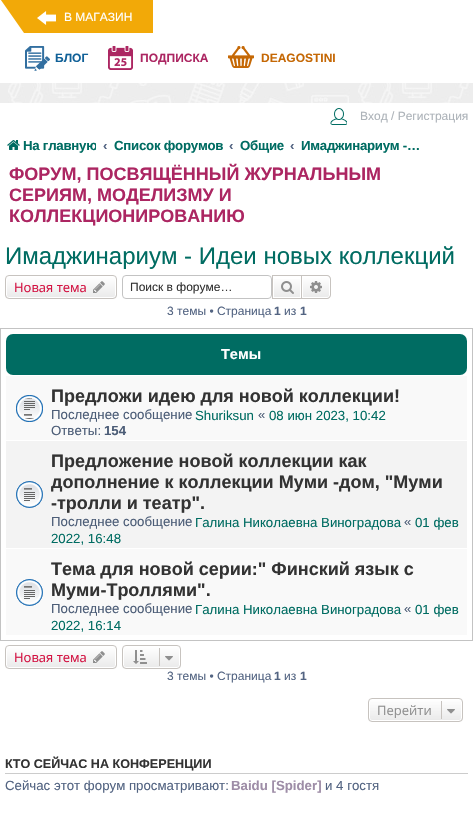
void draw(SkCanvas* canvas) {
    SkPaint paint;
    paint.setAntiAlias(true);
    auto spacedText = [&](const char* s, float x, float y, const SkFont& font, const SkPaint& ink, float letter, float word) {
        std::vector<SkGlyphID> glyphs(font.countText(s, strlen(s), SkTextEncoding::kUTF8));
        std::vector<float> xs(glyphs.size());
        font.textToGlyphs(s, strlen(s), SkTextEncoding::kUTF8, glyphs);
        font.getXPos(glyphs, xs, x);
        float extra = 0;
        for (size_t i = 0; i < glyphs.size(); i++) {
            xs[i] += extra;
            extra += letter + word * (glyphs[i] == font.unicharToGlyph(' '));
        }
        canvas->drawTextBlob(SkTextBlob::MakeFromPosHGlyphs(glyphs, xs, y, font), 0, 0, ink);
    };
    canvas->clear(0xFFFFFFFF);
    canvas->drawImageRect(SkImages::DeferredFromEncodedData(SkData::MakeFromFileName("img1.png")), SkRect::MakeXYWH(0, 83, 473, 20), SkSamplingOptions());
    canvas->drawImageRect(SkImages::DeferredFromEncodedData(SkData::MakeFromFileName("img2.png")), SkRect::MakeXYWH(1, 0, 152, 33), SkSamplingOptions());
    SkFont font1(fontMgr->matchFamilyStyle("Liberation Sans", SkFontStyle::Normal()), 12);
    font1.setSubpixel(true);
    paint.setColor(0xFFFFFFFF);
    canvas->drawString("В МАГАЗИН", 64, 21, font1, paint);
    canvas->drawImageRect(SkImages::DeferredFromEncodedData(SkData::MakeFromFileName("img3.png")), SkRect::MakeXYWH(25, 46, 25, 25), SkSamplingOptions());
    SkFont font2(fontMgr->matchFamilyStyle("Liberation Sans", SkFontStyle::Bold()), 12);
    font2.setSubpixel(true);
    paint.setColor(0xFF116198);
    canvas->drawString("БЛОГ", 55, 62, font2, paint);
    canvas->drawImageRect(SkImages::DeferredFromEncodedData(SkData::MakeFromFileName("img4.png")), SkRect::MakeXYWH(108, 46, 25, 24), SkSamplingOptions());
    paint.setColor(0xFFAC2662);
    canvas->drawString("ПОДПИСКА", 140, 62, font2, paint);
    canvas->drawImageRect(SkImages::DeferredFromEncodedData(SkData::MakeFromFileName("img5.png")), SkRect::MakeXYWH(228, 46, 26, 22), SkSamplingOptions());
    paint.setColor(0xFFC56805);
    canvas->drawString("DEAGOSTINI", 261, 62, font2, paint);
    canvas->drawImageRect(SkImages::DeferredFromEncodedData(SkData::MakeFromFileName("img6.png")), SkRect::MakeXYWH(330, 108, 17, 17), SkSamplingOptions());
    paint.setColor(0xFFADB3B9);
    canvas->drawString("Вход / Регистрация", 360, 120, font1, paint);
    canvas->drawImageRect(SkImages::DeferredFromEncodedData(SkData::MakeFromFileName("img7.png")), SkRect::MakeXYWH(7, 140, 13, 10), SkSamplingOptions());
    canvas->save();
    canvas->clipRect(SkRect::MakeXYWH(5, 131, 91, 29));
    SkFont font3(fontMgr->matchFamilyStyle("Liberation Sans", SkFontStyle::Bold()), 13.25f);
    font3.setSubpixel(true);
    paint.setColor(0xFF006C62);
    spacedText("На главную", 23, 150, font3, paint, -0.25f, 0);
    canvas->restore();
    paint.setColor(0xFF536482);
    canvas->drawString("‹", 103, 150, font3, paint);
    paint.setColor(0xFF006C62);
    spacedText("Список форумов", 114, 150, font3, paint, -0.25f, 0);
    paint.setColor(0xFF536482);
    canvas->drawString("‹", 229, 150, font3, paint);
    paint.setColor(0xFF006C62);
    spacedText("Общие", 240, 150, font3, paint, -0.25f, 0);
    paint.setColor(0xFF536482);
    canvas->drawString("‹", 290, 150, font3, paint);
    paint.setColor(0xFF006C62);
    spacedText("Имаджинариум -…", 301, 150, font3, paint, -0.25f, 0);
    SkFont font4(fontMgr->matchFamilyStyle("Liberation Sans", SkFontStyle::Bold()), 18);
    font4.setSubpixel(true);
    paint.setColor(0xFFAC2662);
    canvas->drawString("ФОРУМ, ПОСВЯЩЁННЫЙ ЖУРНАЛЬНЫМ", 9, 180, font4, paint);
    canvas->drawString("СЕРИЯМ, МОДЕЛИЗМУ И", 9, 201, font4, paint);
    canvas->drawString("КОЛЛЕКЦИОНИРОВАНИЮ", 9, 222, font4, paint);
    SkFont font5(fontMgr->matchFamilyStyle("Liberation Sans", SkFontStyle::Normal()), 24);
    font5.setSubpixel(true);
    paint.setColor(0xFF006C62);
    canvas->drawString("Имаджинариум - Идеи новых коллекций", 5, 264, font5, paint);
    canvas->save();
    canvas->clipPath(SkPathBuilder().moveTo(9, 275).lineTo(113, 275).cubicTo(115, 275, 117, 277, 117, 279).lineTo(117, 295).cubicTo(117, 297, 115, 299, 113, 299).lineTo(9, 299).cubicTo(7, 299, 5, 297, 5, 295).lineTo(5, 279).cubicTo(5, 277, 7, 275, 9, 275).close().detach(), true);
    {
        const SkColor colors[] = {0xFFFFFFFF, 0xFFE9E9E9};
        const float stops[] = {0, 1};
        const SkPoint ends[] = {{61, 276}, {61, 298}};
        paint.setShader(SkGradientShader::MakeLinear(ends, colors, stops, 2, SkTileMode::kClamp));
        paint.setAlpha(255);
    }
    canvas->drawRect(SkRect::MakeXYWH(5, 276, 112, 22), paint);
    canvas->restore();
    paint.setStyle(SkPaint::kStroke_Style);
    paint.setStrokeWidth(1);
    paint.setShader(nullptr);
    paint.setColor(0xFFFFFFFF);
    canvas->drawRoundRect(SkRect::MakeXYWH(6.5f, 276.5f, 109, 21), 2.5f, 2.5f, paint);
    paint.setColor(0xFFC7C3BF);
    canvas->drawRoundRect(SkRect::MakeXYWH(5.5f, 275.5f, 111, 23), 3.5f, 3.5f, paint);
    SkFont font6(fontMgr->matchFamilyStyle("Open Sans", SkFontStyle::Normal()), 13);
    font6.setSubpixel(true);
    paint.setStyle(SkPaint::kFill_Style);
    paint.setColor(0xFFD31141);
    canvas->drawString("Новая тема", 14, 292, font6, paint);
    canvas->drawImageRect(SkImages::DeferredFromEncodedData(SkData::MakeFromFileName("img8.png")), SkRect::MakeXYWH(93, 281, 12, 12), SkSamplingOptions());
    paint.setStyle(SkPaint::kStroke_Style);
    paint.setColor(0xFFC3C3C3);
    canvas->drawRoundRect(SkRect::MakeXYWH(122.5f, 275.5f, 149, 23), 3.5f, 3.5f, paint);
    paint.setStyle(SkPaint::kFill_Style);
    paint.setColor(0xFF333333);
    canvas->drawString("Поиск в форуме…", 130, 291, font1, paint);
    {
        const SkColor colors[] = {0xFFFFFFFF, 0xFFE9E9E9};
        const float stops[] = {0, 1};
        const SkPoint ends[] = {{287, 276}, {287, 298}};
        paint.setShader(SkGradientShader::MakeLinear(ends, colors, stops, 2, SkTileMode::kClamp));
        paint.setAlpha(255);
    }
    canvas->drawRect(SkRect::MakeXYWH(274, 279, 26, 18), paint);
    paint.setStyle(SkPaint::kStroke_Style);
    paint.setShader(nullptr);
    paint.setColor(0xFFC7C3BF);
    canvas->drawRect(SkRect::MakeXYWH(272.5f, 275.5f, 29, 23), paint);
    canvas->drawImageRect(SkImages::DeferredFromEncodedData(SkData::MakeFromFileName("img9.png")), SkRect::MakeXYWH(281, 281, 13, 13), SkSamplingOptions());
    paint.setStyle(SkPaint::kFill_Style);
    {
        const SkColor colors[] = {0xFFFFFFFF, 0xFFE9E9E9};
        const float stops[] = {0, 1};
        const SkPoint ends[] = {{316, 276}, {316, 298}};
        paint.setShader(SkGradientShader::MakeLinear(ends, colors, stops, 2, SkTileMode::kClamp));
        paint.setAlpha(255);
    }
    canvas->drawPath(SkPathBuilder().moveTo(302.5f, 276.5f).lineTo(327, 276.5f).cubicTo(328.5f, 276.5f, 329.5f, 277.5f, 329.5f, 279).lineTo(329.5f, 295).cubicTo(329.5f, 296.5f, 328.5f, 297.5f, 327, 297.5f).lineTo(302.5f, 297.5f).close().detach(), paint);
    paint.setStyle(SkPaint::kStroke_Style);
    paint.setShader(nullptr);
    paint.setColor(0xFFFFFFFF);
    canvas->drawPath(SkPathBuilder().moveTo(302.5f, 276.5f).lineTo(327, 276.5f).cubicTo(328.5f, 276.5f, 329.5f, 277.5f, 329.5f, 279).lineTo(329.5f, 295).cubicTo(329.5f, 296.5f, 328.5f, 297.5f, 327, 297.5f).lineTo(302.5f, 297.5f).close().detach(), paint);
    paint.setStyle(SkPaint::kFill_Style);
    paint.setColor(0xFFC7C3BF);
    canvas->drawPath(SkPathBuilder(SkPathFillType::kEvenOdd).moveTo(302, 275).lineTo(327, 275).cubicTo(329, 275, 331, 277, 331, 279).lineTo(331, 295).cubicTo(331, 297, 329, 299, 327, 299).lineTo(302, 299).close().moveTo(302, 276).lineTo(327, 276).cubicTo(328.5f, 276, 330, 277.5f, 330, 279).lineTo(330, 295).cubicTo(330, 296.5f, 328.5f, 298, 327, 298).lineTo(302, 298).close().detach(), paint);
    canvas->drawImageRect(SkImages::DeferredFromEncodedData(SkData::MakeFromFileName("img10.png")), SkRect::MakeXYWH(310, 281, 12, 12), SkSamplingOptions());
    paint.setColor(0xFF536482);
    canvas->drawString("3 темы • Страница", 167, 315, font1, paint);
    canvas->drawString("1", 274, 315, font2, paint);
    canvas->drawString("из", 284, 315, font1, paint);
    canvas->drawString("1", 300, 315, font2, paint);
    paint.setStyle(SkPaint::kStroke_Style);
    paint.setColor(0xFFC3C3C3);
    canvas->drawRect(SkRect::MakeXYWH(0.5f, 328.5f, 472, 312), paint);
    paint.setStyle(SkPaint::kFill_Style);
    paint.setColor(0xFF006C62);
    canvas->drawRoundRect(SkRect::MakeXYWH(6, 334, 461, 41), 7, 7, paint);
    SkFont font7(fontMgr->matchFamilyStyle("Liberation Sans", SkFontStyle::Bold()), 14.5f);
    font7.setSubpixel(true);
    paint.setColor(0xFFFFFFFF);
    canvas->drawString("Темы", 221, 359, font7, paint);
    paint.setColor(0xFFF9F9F9);
    canvas->drawRect(SkRect::MakeXYWH(6, 376, 461, 64), paint);
    canvas->drawImageRect(SkImages::DeferredFromEncodedData(SkData::MakeFromFileName("img11.png")), SkRect::MakeXYWH(16, 395, 27, 27), SkSamplingOptions());
    paint.setColor(0xFF333333);
    canvas->drawString("Предложи идею для новой коллекции!", 51, 402, font4, paint);
    SkFont font8(fontMgr->matchFamilyStyle("Liberation Sans", SkFontStyle::Normal()), 13.25f);
    font8.setSubpixel(true);
    paint.setColor(0xFF4C5D77);
    canvas->drawString("Последнее сообщение", 51, 419, font8, paint);
    paint.setColor(0xFF006C62);
    canvas->drawString("Shuriksun", 195, 420, font8, paint);
    paint.setColor(0xFF4C5D77);
    canvas->drawString("«", 258, 419, font8, paint);
    paint.setColor(0xFF006C62);
    canvas->drawString("08 июн 2023, 10:42", 269, 420, font8, paint);
    paint.setColor(0xFF4C5D77);
    canvas->drawString("Ответы:", 51, 435, font8, paint);
    canvas->drawString("154", 104, 435, font3, paint);
    paint.setColor(0xFFF3F3F3);
    canvas->drawRect(SkRect::MakeXYWH(6, 441, 461, 107), paint);
    canvas->drawImageRect(SkImages::DeferredFromEncodedData(SkData::MakeFromFileName("img12.png")), SkRect::MakeXYWH(16, 481, 27, 27), SkSamplingOptions());
    paint.setColor(0xFF333333);
    canvas->drawString("Предложение новой коллекции как", 51, 467, font4, paint);
    canvas->drawString("дополнение к коллекции Муми -дом, \"Муми", 51, 488, font4, paint);
    canvas->drawString("-тролли и театр\".", 51, 509, font4, paint);
    paint.setColor(0xFF4C5D77);
    canvas->drawString("Последнее сообщение", 51, 526, font8, paint);
    paint.setColor(0xFF006C62);
    canvas->drawString("Галина Николаевна Виноградова", 195, 527, font8, paint);
    paint.setColor(0xFF4C5D77);
    canvas->drawString("«", 404, 526, font8, paint);
    paint.setColor(0xFF006C62);
    canvas->drawString("01 фев", 415, 527, font8, paint);
    canvas->drawString("2022, 16:48", 51, 543, font8, paint);
    paint.setColor(0xFFF9F9F9);
    canvas->drawRect(SkRect::MakeXYWH(6, 549, 461, 86), paint);
    canvas->drawImageRect(SkImages::DeferredFromEncodedData(SkData::MakeFromFileName("img13.png")), SkRect::MakeXYWH(16, 579, 27, 27), SkSamplingOptions());
    paint.setColor(0xFF333333);
    canvas->drawString("Тема для новой серии:\" Финский язык с", 51, 575, font4, paint);
    canvas->drawString("Муми-Троллями\".", 51, 596, font4, paint);
    paint.setColor(0xFF4C5D77);
    canvas->drawString("Последнее сообщение", 51, 613, font8, paint);
    paint.setColor(0xFF006C62);
    canvas->drawString("Галина Николаевна Виноградова", 195, 614, font8, paint);
    paint.setColor(0xFF4C5D77);
    canvas->drawString("«", 404, 613, font8, paint);
    paint.setColor(0xFF006C62);
    canvas->drawString("01 фев", 415, 614, font8, paint);
    canvas->drawString("2022, 16:14", 51, 630, font8, paint);
    canvas->save();
    canvas->clipPath(SkPathBuilder().moveTo(9, 645).lineTo(113, 645).cubicTo(115, 645, 117, 647, 117, 649).lineTo(117, 665).cubicTo(117, 667, 115, 669, 113, 669).lineTo(9, 669).cubicTo(7, 669, 5, 667, 5, 665).lineTo(5, 649).cubicTo(5, 647, 7, 645, 9, 645).close().detach(), true);
    {
        const SkColor colors[] = {0xFFFFFFFF, 0xFFE9E9E9};
        const float stops[] = {0, 1};
        const SkPoint ends[] = {{61, 646}, {61, 668}};
        paint.setShader(SkGradientShader::MakeLinear(ends, colors, stops, 2, SkTileMode::kClamp));
        paint.setAlpha(255);
    }
    canvas->drawRect(SkRect::MakeXYWH(5, 646, 112, 22), paint);
    canvas->restore();
    paint.setStyle(SkPaint::kStroke_Style);
    paint.setShader(nullptr);
    paint.setColor(0xFFFFFFFF);
    canvas->drawRoundRect(SkRect::MakeXYWH(6.5f, 646.5f, 109, 21), 2.5f, 2.5f, paint);
    paint.setColor(0xFFC7C3BF);
    canvas->drawRoundRect(SkRect::MakeXYWH(5.5f, 645.5f, 111, 23), 3.5f, 3.5f, paint);
    paint.setStyle(SkPaint::kFill_Style);
    paint.setColor(0xFFD31141);
    canvas->drawString("Новая тема", 14, 662, font6, paint);
    canvas->drawImageRect(SkImages::DeferredFromEncodedData(SkData::MakeFromFileName("img8.png")), SkRect::MakeXYWH(93, 651, 12, 12), SkSamplingOptions());
    canvas->save();
    canvas->clipPath(SkPathBuilder().moveTo(126, 645).lineTo(177, 645).cubicTo(179, 645, 181, 647, 181, 649).lineTo(181, 665).cubicTo(181, 667, 179, 669, 177, 669).lineTo(126, 669).cubicTo(124, 669, 122, 667, 122, 665).lineTo(122, 649).cubicTo(122, 647, 124, 645, 126, 645).close().detach(), true);
    {
        const SkColor colors[] = {0xFFFFFFFF, 0xFFE9E9E9};
        const float stops[] = {0, 1};
        const SkPoint ends[] = {{152, 646}, {152, 668}};
        paint.setShader(SkGradientShader::MakeLinear(ends, colors, stops, 2, SkTileMode::kClamp));
        paint.setAlpha(255);
    }
    canvas->drawRect(SkRect::MakeXYWH(122, 646, 59, 22), paint);
    canvas->restore();
    paint.setStyle(SkPaint::kStroke_Style);
    paint.setShader(nullptr);
    paint.setColor(0xFFFFFFFF);
    canvas->drawRoundRect(SkRect::MakeXYWH(123.5f, 646.5f, 56, 21), 2.5f, 2.5f, paint);
    paint.setColor(0xFFC7C3BF);
    canvas->drawRoundRect(SkRect::MakeXYWH(122.5f, 645.5f, 58, 23), 3.5f, 3.5f, paint);
    canvas->drawImageRect(SkImages::DeferredFromEncodedData(SkData::MakeFromFileName("img14.png")), SkRect::MakeXYWH(133, 650, 14, 14), SkSamplingOptions());
    paint.setStyle(SkPaint::kFill_Style);
    canvas->drawRect(SkRect::MakeXYWH(159, 648, 1, 18), paint);
    canvas->drawImageRect(SkImages::DeferredFromEncodedData(SkData::MakeFromFileName("img15.png")), SkRect::MakeXYWH(165, 656, 8, 5), SkSamplingOptions());
    paint.setColor(0xFF536482);
    canvas->drawString("3 темы • Страница", 167, 680, font1, paint);
    canvas->drawString("1", 274, 680, font2, paint);
    canvas->drawString("из", 284, 680, font1, paint);
    canvas->drawString("1", 300, 680, font2, paint);
    canvas->save();
    canvas->clipPath(SkPathBuilder().moveTo(372, 698).lineTo(459, 698).cubicTo(461, 698, 463, 700, 463, 702).lineTo(463, 718).cubicTo(463, 720, 461, 722, 459, 722).lineTo(372, 722).cubicTo(370, 722, 368, 720, 368, 718).lineTo(368, 702).cubicTo(368, 700, 370, 698, 372, 698).close().detach(), true);
    {
        const SkColor colors[] = {0xFFFFFFFF, 0xFFE9E9E9};
        const float stops[] = {0, 1};
        const SkPoint ends[] = {{416, 699}, {416, 721}};
        paint.setShader(SkGradientShader::MakeLinear(ends, colors, stops, 2, SkTileMode::kClamp));
        paint.setAlpha(255);
    }
    canvas->drawRect(SkRect::MakeXYWH(368, 699, 95, 22), paint);
    canvas->restore();
    paint.setStyle(SkPaint::kStroke_Style);
    paint.setShader(nullptr);
    paint.setColor(0xFFFFFFFF);
    canvas->drawRoundRect(SkRect::MakeXYWH(369.5f, 699.5f, 92, 21), 2.5f, 2.5f, paint);
    paint.setColor(0xFFC7C3BF);
    canvas->drawRoundRect(SkRect::MakeXYWH(368.5f, 698.5f, 94, 23), 3.5f, 3.5f, paint);
    paint.setStyle(SkPaint::kFill_Style);
    paint.setColor(0xFF8F8F8F);
    canvas->drawString("Перейти", 377, 715, font6, paint);
    paint.setColor(0xFFC7C3BF);
    canvas->drawRect(SkRect::MakeXYWH(441, 701, 1, 18), paint);
    canvas->drawImageRect(SkImages::DeferredFromEncodedData(SkData::MakeFromFileName("img15.png")), SkRect::MakeXYWH(447, 709, 8, 5), SkSamplingOptions());
    paint.setColor(0xFFCCCCCC);
    canvas->drawRect(SkRect::MakeXYWH(5, 773, 463, 1), paint);
    SkFont font9(fontMgr->matchFamilyStyle("Liberation Sans", SkFontStyle::Bold()), 12.6f);
    font9.setSubpixel(true);
    paint.setColor(0xFF333333);
    canvas->drawString("КТО СЕЙЧАС НА КОНФЕРЕНЦИИ", 5, 768, font9, paint);
    paint.setColor(0xFF536482);
    canvas->drawString("Сейчас этот форум просматривают:", 5, 790, font8, paint);
    paint.setColor(0xFF9E8DA7);
    canvas->drawString("Baidu [Spider]", 231, 790, font3, paint);
    paint.setColor(0xFF536482);
    canvas->drawString("и 4 гостя", 325, 790, font8, paint);
}
